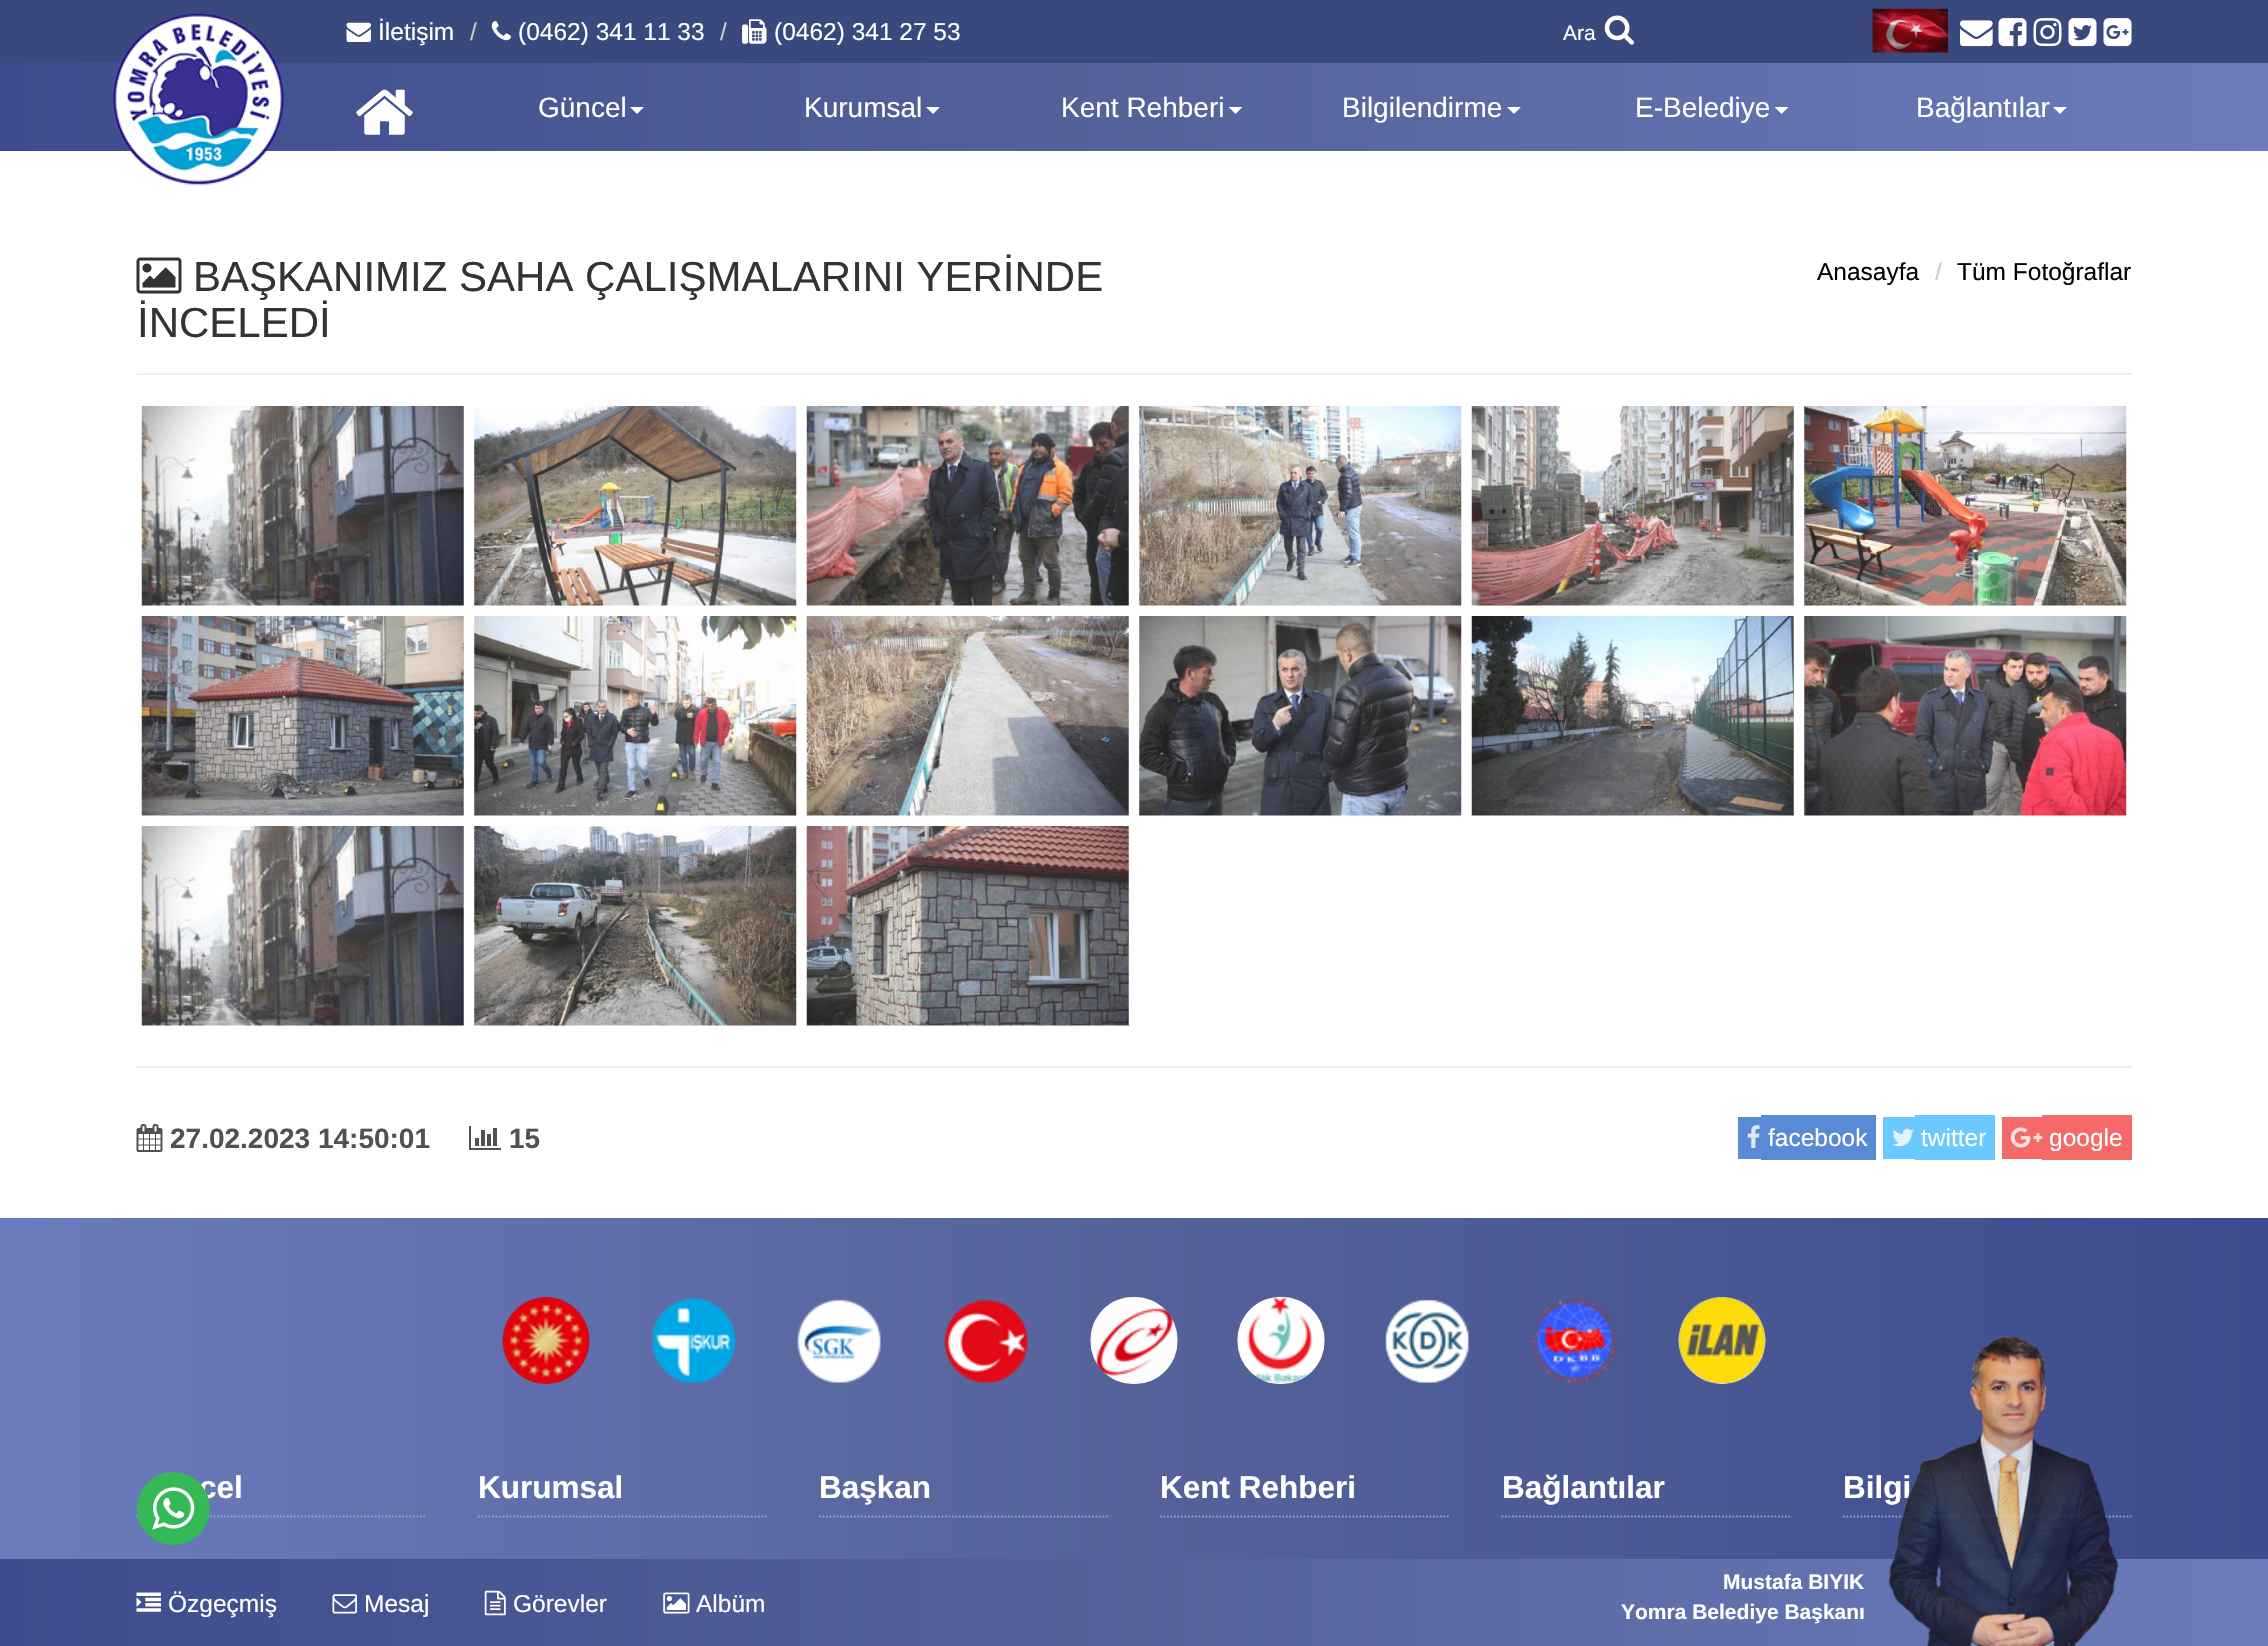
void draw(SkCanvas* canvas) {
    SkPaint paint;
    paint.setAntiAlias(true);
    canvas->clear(0xFFFFFFFF);
    paint.setColor(0xFF39487D);
    canvas->drawRect(SkRect::MakeXYWH(0, 0, 2268, 63), paint);
    canvas->drawImageRect(SkImages::DeferredFromEncodedData(SkData::MakeFromFileName("img1.png")), SkRect::MakeXYWH(346, 22, 25, 20), SkSamplingOptions());
    SkFont font1(fontMgr->matchFamilyStyle("Liberation Sans", SkFontStyle::Normal()), 24.5f);
    font1.setSubpixel(true);
    paint.setColor(0xFFFFFFFF);
    canvas->drawString("İletişim", 378, 40, font1, paint);
    paint.setColor(0xFFCCCCCC);
    canvas->drawString("/", 470, 40, font1, paint);
    canvas->drawImageRect(SkImages::DeferredFromEncodedData(SkData::MakeFromFileName("img2.png")), SkRect::MakeXYWH(491, 21, 20, 20), SkSamplingOptions());
    paint.setColor(0xFFFFFFFF);
    canvas->drawString("(0462) 341 11 33", 518, 40, font1, paint);
    paint.setColor(0xFFCCCCCC);
    canvas->drawString("/", 720, 40, font1, paint);
    canvas->drawImageRect(SkImages::DeferredFromEncodedData(SkData::MakeFromFileName("img3.png")), SkRect::MakeXYWH(742, 19, 25, 25), SkSamplingOptions());
    paint.setColor(0xFFFFFFFF);
    canvas->drawString("(0462) 341 27 53", 774, 40, font1, paint);
    SkFont font2(fontMgr->matchFamilyStyle("Liberation Sans", SkFontStyle::Normal()), 21);
    font2.setSubpixel(true);
    canvas->drawString("Ara", 1563, 40, font2, paint);
    canvas->drawImageRect(SkImages::DeferredFromEncodedData(SkData::MakeFromFileName("img4.png")), SkRect::MakeXYWH(1604, 15, 30, 30), SkSamplingOptions());
    canvas->drawImageRect(SkImages::DeferredFromEncodedData(SkData::MakeFromFileName("img5.png")), SkRect::MakeXYWH(1871, 8, 77, 45), SkSamplingOptions());
    canvas->drawImageRect(SkImages::DeferredFromEncodedData(SkData::MakeFromFileName("img6.png")), SkRect::MakeXYWH(1960, 20, 33, 27), SkSamplingOptions());
    canvas->drawImageRect(SkImages::DeferredFromEncodedData(SkData::MakeFromFileName("img7.png")), SkRect::MakeXYWH(1998, 18, 29, 29), SkSamplingOptions());
    canvas->drawImageRect(SkImages::DeferredFromEncodedData(SkData::MakeFromFileName("img8.png")), SkRect::MakeXYWH(2033, 18, 29, 29), SkSamplingOptions());
    canvas->drawImageRect(SkImages::DeferredFromEncodedData(SkData::MakeFromFileName("img9.png")), SkRect::MakeXYWH(2068, 18, 29, 29), SkSamplingOptions());
    canvas->drawImageRect(SkImages::DeferredFromEncodedData(SkData::MakeFromFileName("img10.png")), SkRect::MakeXYWH(2103, 18, 29, 29), SkSamplingOptions());
    {
        const SkColor colors[] = {0xFF3D4C8E, 0xFF55629A, 0xFF6B7CBC};
        const float stops[] = {0, 0.5f, 1};
        const SkPoint ends[] = {{0, 107}, {2268, 107}};
        paint.setShader(SkGradientShader::MakeLinear(ends, colors, stops, 3, SkTileMode::kClamp));
        paint.setAlpha(255);
    }
    canvas->drawRect(SkRect::MakeXYWH(0, 63, 2268, 88), paint);
    canvas->drawImageRect(SkImages::DeferredFromEncodedData(SkData::MakeFromFileName("img11.png")), SkRect::MakeXYWH(112, 13, 173, 172), SkSamplingOptions());
    canvas->drawImageRect(SkImages::DeferredFromEncodedData(SkData::MakeFromFileName("img12.png")), SkRect::MakeXYWH(356, 89, 57, 46), SkSamplingOptions());
    SkFont font3(fontMgr->matchFamilyStyle("Liberation Sans", SkFontStyle::Normal()), 28);
    font3.setSubpixel(true);
    paint.setShader(nullptr);
    paint.setColor(0xFFFFFFFF);
    canvas->drawString("Güncel", 538, 117, font3, paint);
    canvas->drawPath(SkPathBuilder().moveTo(630, 107).lineTo(644, 107).lineTo(637, 114).close().detach(), paint);
    canvas->drawString("Kurumsal", 804, 117, font3, paint);
    canvas->drawPath(SkPathBuilder().moveTo(926, 107).lineTo(940, 107).lineTo(933, 114).close().detach(), paint);
    canvas->drawString("Kent Rehberi", 1061, 117, font3, paint);
    canvas->drawPath(SkPathBuilder().moveTo(1228.5f, 107).lineTo(1242.5f, 107).lineTo(1235.5f, 114).close().detach(), paint);
    canvas->drawString("Bilgilendirme", 1342, 117, font3, paint);
    canvas->drawPath(SkPathBuilder().moveTo(1507, 107).lineTo(1521, 107).lineTo(1514, 114).close().detach(), paint);
    canvas->drawString("E-Belediye", 1635, 117, font3, paint);
    canvas->drawPath(SkPathBuilder().moveTo(1774.5f, 107).lineTo(1788.5f, 107).lineTo(1781.5f, 114).close().detach(), paint);
    canvas->drawString("Bağlantılar", 1916, 117, font3, paint);
    canvas->drawPath(SkPathBuilder().moveTo(2053, 107).lineTo(2067, 107).lineTo(2060, 114).close().detach(), paint);
    canvas->drawImageRect(SkImages::DeferredFromEncodedData(SkData::MakeFromFileName("img13.png")), SkRect::MakeXYWH(136, 257, 46, 37), SkSamplingOptions());
    SkFont font4(fontMgr->matchFamilyStyle("Liberation Sans", SkFontStyle::Normal()), 42);
    font4.setSubpixel(true);
    paint.setColor(0xFF333333);
    canvas->drawString("BAŞKANIMIZ SAHA ÇALIŞMALARINI YERİNDE", 193, 291, font4, paint);
    canvas->drawString("İNCELEDİ", 137, 337, font4, paint);
    paint.setColor(0xFF000000);
    canvas->drawString("Anasayfa", 1817, 280, font1, paint);
    paint.setColor(0xFFCCCCCC);
    canvas->drawString("/", 1935, 280, font1, paint);
    paint.setColor(0xFF000000);
    canvas->drawString("Tüm Fotoğraflar", 1957, 280, font1, paint);
    paint.setColor(0xFFEEEEEE);
    canvas->drawRect(SkRect::MakeXYWH(137, 373, 1995, 2), paint);
    canvas->drawImageRect(SkImages::DeferredFromEncodedData(SkData::MakeFromFileName("img14.png")), SkRect::MakeXYWH(141, 406, 323, 200), SkSamplingOptions());
    canvas->drawImageRect(SkImages::DeferredFromEncodedData(SkData::MakeFromFileName("img15.png")), SkRect::MakeXYWH(474, 406, 323, 200), SkSamplingOptions());
    canvas->drawImageRect(SkImages::DeferredFromEncodedData(SkData::MakeFromFileName("img16.png")), SkRect::MakeXYWH(806, 406, 323, 200), SkSamplingOptions());
    canvas->drawImageRect(SkImages::DeferredFromEncodedData(SkData::MakeFromFileName("img17.png")), SkRect::MakeXYWH(1139, 406, 323, 200), SkSamplingOptions());
    canvas->drawImageRect(SkImages::DeferredFromEncodedData(SkData::MakeFromFileName("img18.png")), SkRect::MakeXYWH(1471, 406, 323, 200), SkSamplingOptions());
    canvas->drawImageRect(SkImages::DeferredFromEncodedData(SkData::MakeFromFileName("img19.png")), SkRect::MakeXYWH(1804, 406, 323, 200), SkSamplingOptions());
    canvas->drawImageRect(SkImages::DeferredFromEncodedData(SkData::MakeFromFileName("img20.png")), SkRect::MakeXYWH(141, 616, 323, 200), SkSamplingOptions());
    canvas->drawImageRect(SkImages::DeferredFromEncodedData(SkData::MakeFromFileName("img21.png")), SkRect::MakeXYWH(474, 616, 323, 200), SkSamplingOptions());
    canvas->drawImageRect(SkImages::DeferredFromEncodedData(SkData::MakeFromFileName("img22.png")), SkRect::MakeXYWH(806, 616, 323, 200), SkSamplingOptions());
    canvas->drawImageRect(SkImages::DeferredFromEncodedData(SkData::MakeFromFileName("img23.png")), SkRect::MakeXYWH(1139, 616, 323, 200), SkSamplingOptions());
    canvas->drawImageRect(SkImages::DeferredFromEncodedData(SkData::MakeFromFileName("img24.png")), SkRect::MakeXYWH(1471, 616, 323, 200), SkSamplingOptions());
    canvas->drawImageRect(SkImages::DeferredFromEncodedData(SkData::MakeFromFileName("img25.png")), SkRect::MakeXYWH(1804, 616, 323, 200), SkSamplingOptions());
    canvas->drawImageRect(SkImages::DeferredFromEncodedData(SkData::MakeFromFileName("img26.png")), SkRect::MakeXYWH(141, 826, 323, 200), SkSamplingOptions());
    canvas->drawImageRect(SkImages::DeferredFromEncodedData(SkData::MakeFromFileName("img27.png")), SkRect::MakeXYWH(474, 826, 323, 200), SkSamplingOptions());
    canvas->drawImageRect(SkImages::DeferredFromEncodedData(SkData::MakeFromFileName("img28.png")), SkRect::MakeXYWH(806, 826, 323, 200), SkSamplingOptions());
    canvas->drawRect(SkRect::MakeXYWH(137, 1066, 1995, 2), paint);
    canvas->drawImageRect(SkImages::DeferredFromEncodedData(SkData::MakeFromFileName("img29.png")), SkRect::MakeXYWH(136, 1124, 27, 28), SkSamplingOptions());
    SkFont font5(fontMgr->matchFamilyStyle("Liberation Sans", SkFontStyle::Bold()), 28);
    font5.setSubpixel(true);
    paint.setColor(0xFF515151);
    canvas->drawString("27.02.2023 14:50:01", 170, 1148, font5, paint);
    canvas->drawImageRect(SkImages::DeferredFromEncodedData(SkData::MakeFromFileName("img30.png")), SkRect::MakeXYWH(469, 1126, 32, 24), SkSamplingOptions());
    canvas->drawString("15", 509, 1148, font5, paint);
    paint.setColor(0xFF598AD5);
    canvas->drawRect(SkRect::MakeXYWH(1738, 1117, 23, 42), paint);
    canvas->drawRect(SkRect::MakeXYWH(1761, 1115, 115, 45), paint);
    canvas->drawImageRect(SkImages::DeferredFromEncodedData(SkData::MakeFromFileName("img31.png")), SkRect::MakeXYWH(1747, 1125, 13, 23), SkSamplingOptions());
    paint.setColor(0xFFFFFFFF);
    canvas->drawString("facebook", 1768, 1146, font1, paint);
    paint.setColor(0xFF6BC9FF);
    canvas->drawRect(SkRect::MakeXYWH(1883, 1117, 32, 42), paint);
    canvas->drawRect(SkRect::MakeXYWH(1915, 1115, 80, 45), paint);
    canvas->drawImageRect(SkImages::DeferredFromEncodedData(SkData::MakeFromFileName("img32.png")), SkRect::MakeXYWH(1892, 1128, 22, 19), SkSamplingOptions());
    paint.setColor(0xFFFFFFFF);
    canvas->drawString("twitter", 1921, 1146, font1, paint);
    paint.setColor(0xFFF56969);
    canvas->drawRect(SkRect::MakeXYWH(2002, 1117, 40, 42), paint);
    canvas->drawRect(SkRect::MakeXYWH(2042, 1115, 90, 45), paint);
    canvas->drawImageRect(SkImages::DeferredFromEncodedData(SkData::MakeFromFileName("img33.png")), SkRect::MakeXYWH(2010, 1127, 33, 21), SkSamplingOptions());
    paint.setColor(0xFFFFFFFF);
    canvas->drawString("google", 2049, 1146, font1, paint);
    {
        const SkColor colors[] = {0xFF3D4C8E, 0xFF55629A, 0xFF6B7CBC};
        const float stops[] = {0, 0.5f, 1};
        const SkPoint ends[] = {{2268, 1553}, {0, 1553}};
        paint.setShader(SkGradientShader::MakeLinear(ends, colors, stops, 3, SkTileMode::kClamp));
        paint.setAlpha(255);
    }
    canvas->drawRect(SkRect::MakeXYWH(0, 1218, 2268, 341), paint);
    canvas->drawImageRect(SkImages::DeferredFromEncodedData(SkData::MakeFromFileName("img34.png")), SkRect::MakeXYWH(502, 1296, 88, 89), SkSamplingOptions());
    canvas->drawImageRect(SkImages::DeferredFromEncodedData(SkData::MakeFromFileName("img35.png")), SkRect::MakeXYWH(652, 1298, 84, 85), SkSamplingOptions());
    canvas->drawImageRect(SkImages::DeferredFromEncodedData(SkData::MakeFromFileName("img36.png")), SkRect::MakeXYWH(797, 1299, 84, 84), SkSamplingOptions());
    canvas->drawImageRect(SkImages::DeferredFromEncodedData(SkData::MakeFromFileName("img37.png")), SkRect::MakeXYWH(944, 1299, 84, 84), SkSamplingOptions());
    canvas->drawImageRect(SkImages::DeferredFromEncodedData(SkData::MakeFromFileName("img38.png")), SkRect::MakeXYWH(1090, 1296, 88, 89), SkSamplingOptions());
    canvas->drawImageRect(SkImages::DeferredFromEncodedData(SkData::MakeFromFileName("img39.png")), SkRect::MakeXYWH(1237, 1296, 88, 89), SkSamplingOptions());
    canvas->drawImageRect(SkImages::DeferredFromEncodedData(SkData::MakeFromFileName("img40.png")), SkRect::MakeXYWH(1385, 1299, 84, 84), SkSamplingOptions());
    canvas->drawImageRect(SkImages::DeferredFromEncodedData(SkData::MakeFromFileName("img41.png")), SkRect::MakeXYWH(1531, 1298, 87, 85), SkSamplingOptions());
    canvas->drawImageRect(SkImages::DeferredFromEncodedData(SkData::MakeFromFileName("img42.png")), SkRect::MakeXYWH(1678, 1296, 88, 89), SkSamplingOptions());
    paint.setStyle(SkPaint::kStroke_Style);
    paint.setStrokeWidth(1.8f);
    paint.setShader(nullptr);
    paint.setColor(0xFF929FCD);
    paint.setPathEffect(SkDashPathEffect::Make({{1.75f, 1.75f}}, 0));
    canvas->drawPath(SkPathBuilder().moveTo(136.5f, 1516.5f).lineTo(425, 1516.5f).detach(), paint);
    paint.setPathEffect(nullptr);
    SkFont font6(fontMgr->matchFamilyStyle("Liberation Sans", SkFontStyle::Bold()), 31.5f);
    font6.setSubpixel(true);
    paint.setStyle(SkPaint::kFill_Style);
    paint.setColor(0xFFFFFFFF);
    canvas->drawString("cel", 199, 1498, font6, paint);
    paint.setStyle(SkPaint::kStroke_Style);
    paint.setColor(0xFF929FCD);
    paint.setPathEffect(SkDashPathEffect::Make({{1.75f, 1.75f}}, 0));
    canvas->drawPath(SkPathBuilder().moveTo(478, 1516.5f).lineTo(766.5f, 1516.5f).detach(), paint);
    paint.setPathEffect(nullptr);
    paint.setStyle(SkPaint::kFill_Style);
    paint.setColor(0xFFFFFFFF);
    canvas->drawString("Kurumsal", 478, 1498, font6, paint);
    paint.setStyle(SkPaint::kStroke_Style);
    paint.setColor(0xFF929FCD);
    paint.setPathEffect(SkDashPathEffect::Make({{1.75f, 1.75f}}, 0));
    canvas->drawPath(SkPathBuilder().moveTo(819, 1516.5f).lineTo(1108, 1516.5f).detach(), paint);
    paint.setPathEffect(nullptr);
    paint.setStyle(SkPaint::kFill_Style);
    paint.setColor(0xFFFFFFFF);
    canvas->drawString("Başkan", 819, 1498, font6, paint);
    paint.setStyle(SkPaint::kStroke_Style);
    paint.setColor(0xFF929FCD);
    paint.setPathEffect(SkDashPathEffect::Make({{1.75f, 1.75f}}, 0));
    canvas->drawPath(SkPathBuilder().moveTo(1160, 1516.5f).lineTo(1449, 1516.5f).detach(), paint);
    paint.setPathEffect(nullptr);
    paint.setStyle(SkPaint::kFill_Style);
    paint.setColor(0xFFFFFFFF);
    canvas->drawString("Kent Rehberi", 1160, 1498, font6, paint);
    paint.setStyle(SkPaint::kStroke_Style);
    paint.setColor(0xFF929FCD);
    paint.setPathEffect(SkDashPathEffect::Make({{1.75f, 1.75f}}, 0));
    canvas->drawPath(SkPathBuilder().moveTo(1501.5f, 1516.5f).lineTo(1790, 1516.5f).detach(), paint);
    paint.setPathEffect(nullptr);
    paint.setStyle(SkPaint::kFill_Style);
    paint.setColor(0xFFFFFFFF);
    canvas->drawString("Bağlantılar", 1502, 1498, font6, paint);
    paint.setStyle(SkPaint::kStroke_Style);
    paint.setColor(0xFF929FCD);
    paint.setPathEffect(SkDashPathEffect::Make({{1.75f, 1.75f}}, 0));
    canvas->drawPath(SkPathBuilder().moveTo(1843, 1516.5f).lineTo(2131.5f, 1516.5f).detach(), paint);
    paint.setPathEffect(nullptr);
    paint.setStyle(SkPaint::kFill_Style);
    paint.setColor(0xFFFFFFFF);
    canvas->drawString("Bilgi", 1843, 1498, font6, paint);
    {
        const SkColor colors[] = {0xFF3D4C8E, 0xFF55629A, 0xFF6B7CBC};
        const float stops[] = {0, 0.5f, 1};
        const SkPoint ends[] = {{0, 1603}, {2268, 1603}};
        paint.setShader(SkGradientShader::MakeLinear(ends, colors, stops, 3, SkTileMode::kClamp));
        paint.setAlpha(255);
    }
    canvas->drawRect(SkRect::MakeXYWH(0, 1559, 2268, 87), paint);
    paint.setShader(nullptr);
    paint.setColor(0xFF35B957);
    canvas->drawCircle(173.5f, 1508.5f, 36.5f, paint);
    canvas->drawImageRect(SkImages::DeferredFromEncodedData(SkData::MakeFromFileName("img43.png")), SkRect::MakeXYWH(152, 1487, 43, 43), SkSamplingOptions());
    canvas->drawImageRect(SkImages::DeferredFromEncodedData(SkData::MakeFromFileName("img44.png")), SkRect::MakeXYWH(136, 1592, 25, 20), SkSamplingOptions());
    paint.setColor(0xFFFFFFFF);
    canvas->drawString("Özgeçmiş", 168, 1612, font1, paint);
    canvas->drawImageRect(SkImages::DeferredFromEncodedData(SkData::MakeFromFileName("img45.png")), SkRect::MakeXYWH(332, 1594, 25, 20), SkSamplingOptions());
    canvas->drawString("Mesaj", 364, 1612, font1, paint);
    canvas->drawImageRect(SkImages::DeferredFromEncodedData(SkData::MakeFromFileName("img46.png")), SkRect::MakeXYWH(484, 1590, 22, 26), SkSamplingOptions());
    canvas->drawString("Görevler", 513, 1612, font1, paint);
    canvas->drawImageRect(SkImages::DeferredFromEncodedData(SkData::MakeFromFileName("img47.png")), SkRect::MakeXYWH(663, 1592, 27, 22), SkSamplingOptions());
    canvas->drawString("Albüm", 696, 1612, font1, paint);
    SkFont font7(fontMgr->matchFamilyStyle("Liberation Sans", SkFontStyle::Bold()), 21);
    font7.setSubpixel(true);
    canvas->drawString("Mustafa BIYIK", 1723, 1589, font7, paint);
    canvas->drawString("Yomra Belediye Başkanı", 1621, 1619, font7, paint);
    canvas->drawImageRect(SkImages::DeferredFromEncodedData(SkData::MakeFromFileName("img48.png")), SkRect::MakeXYWH(1888, 1336, 231, 310), SkSamplingOptions());
}
